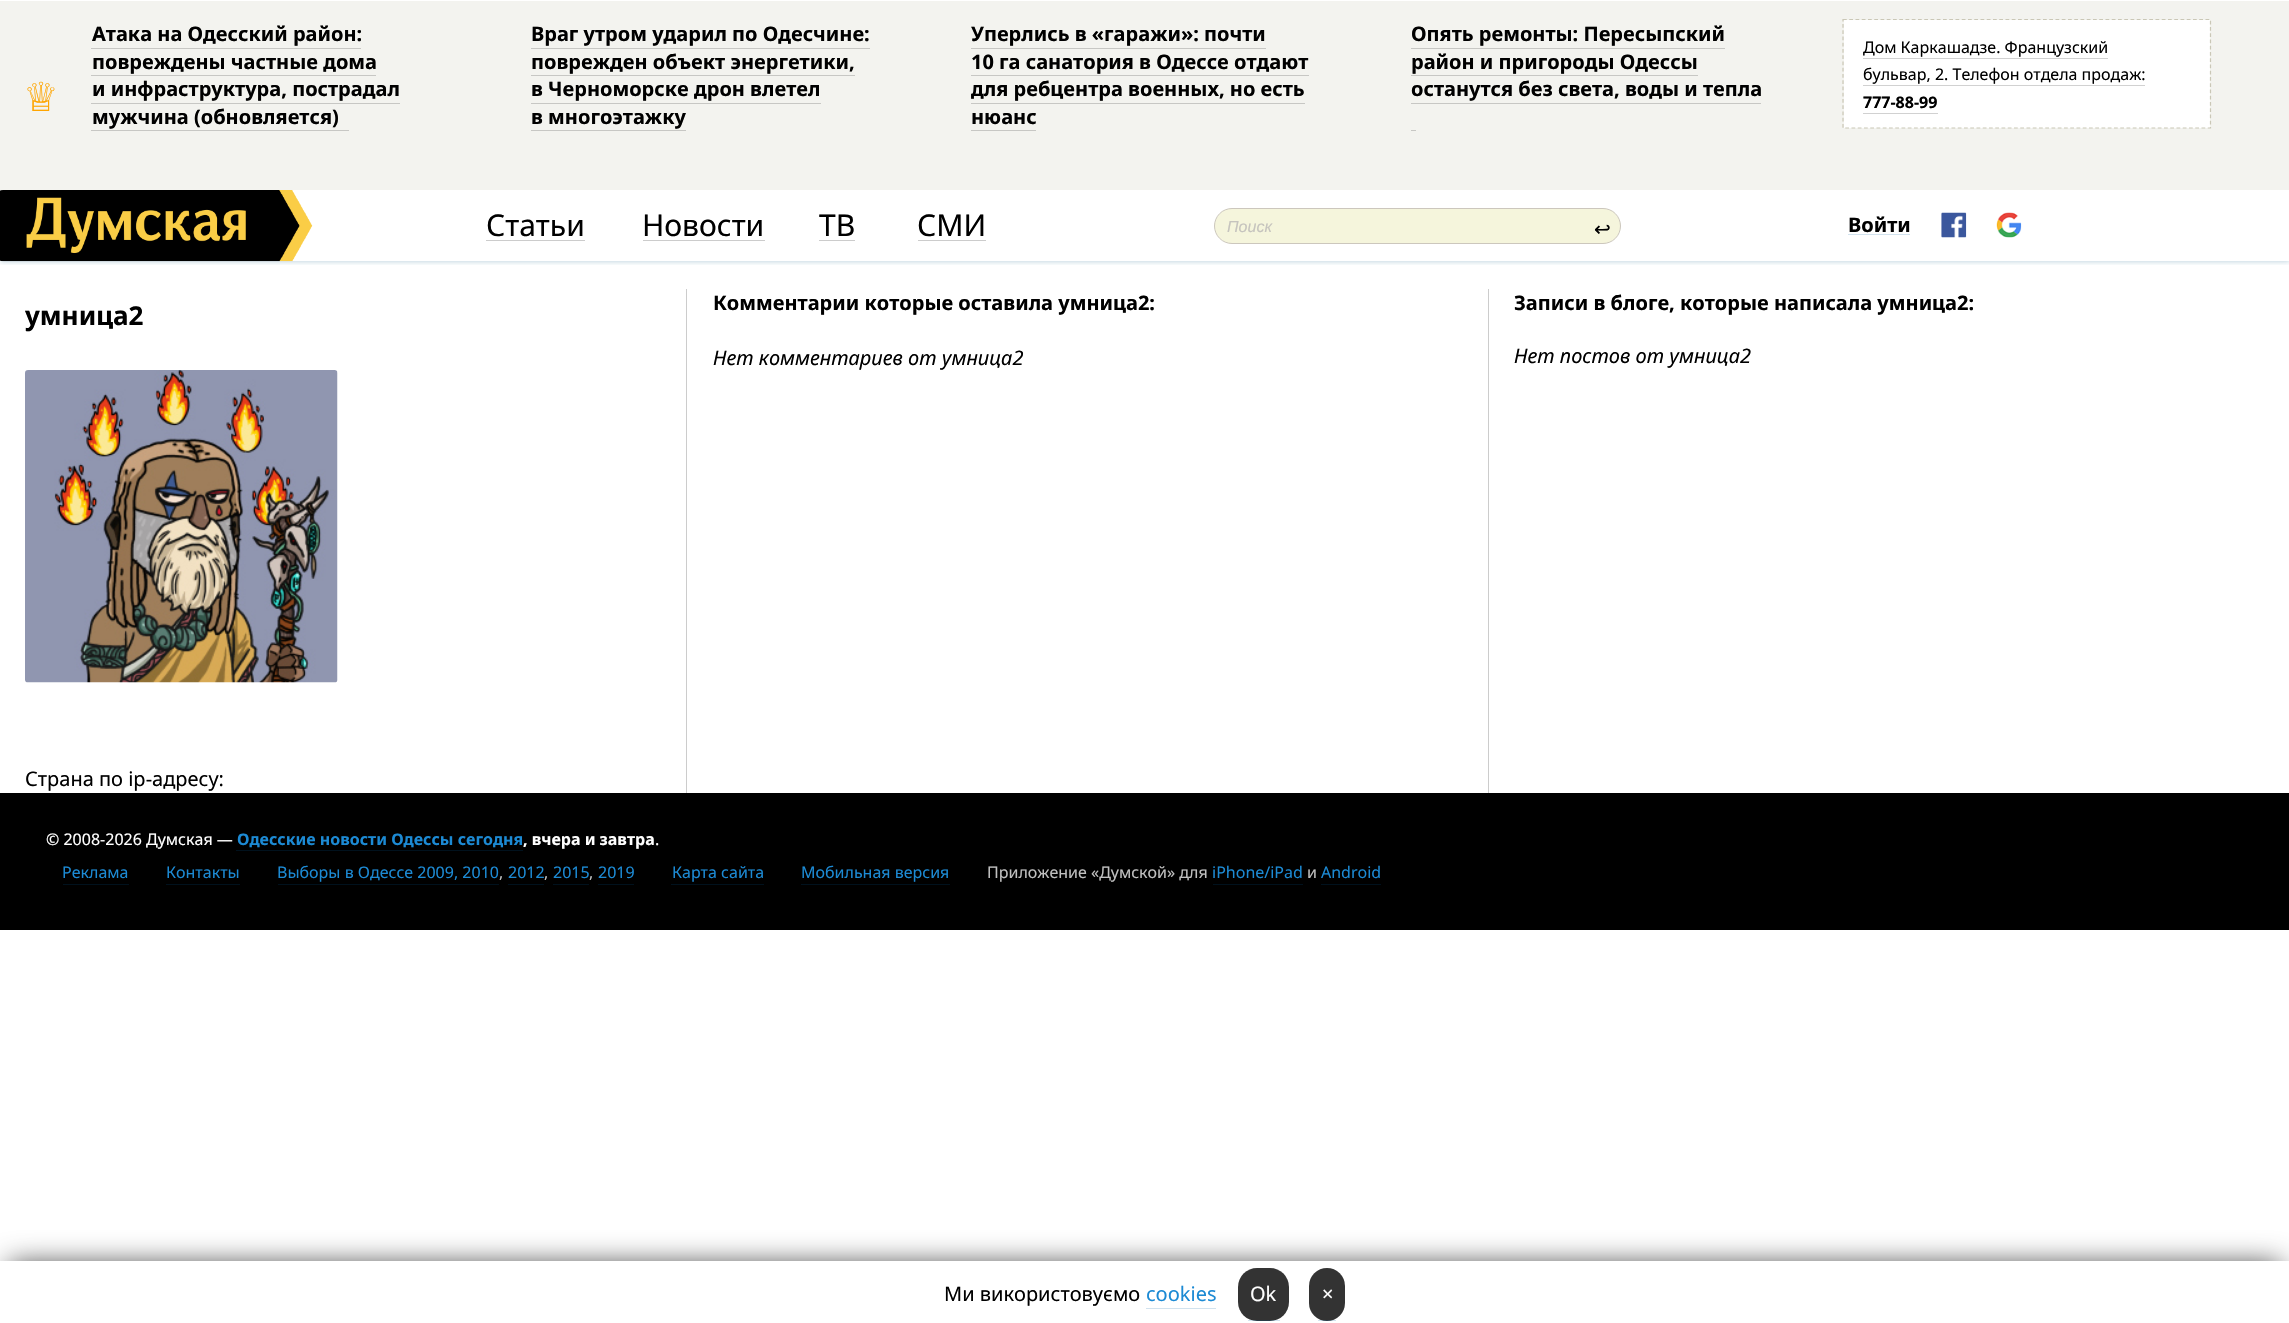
void draw(SkCanvas* canvas) {
    SkPaint paint;
    paint.setAntiAlias(true);
    canvas->clear(0xFFFFFFFF);
    canvas->save();
    canvas->clipRect(SkRect::MakeXYWH(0, 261, 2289, 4));
    paint.setColor(0x4D004F7A);
    paint.setMaskFilter(SkMaskFilter::MakeBlur(kNormal_SkBlurStyle, 3));
    canvas->drawRect(SkRect::MakeXYWH(0, 190, 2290, 71), paint);
    paint.setMaskFilter(nullptr);
    canvas->restore();
    paint.setColor(0xFFF3F3EF);
    canvas->drawRect(SkRect::MakeXYWH(0, 1, 2289, 189), paint);
    SkFont font1(fontMgr->matchFamilyStyle("DejaVu Sans", SkFontStyle::Normal()), 40);
    font1.setSubpixel(true);
    paint.setColor(0xFFFFA500);
    canvas->drawString("♕", 23, 111, font1, paint);
    SkFont font2(fontMgr->matchFamilyStyle("Noto Sans", SkFontStyle::Bold()), 20);
    font2.setSubpixel(true);
    paint.setColor(0xFF000000);
    canvas->drawString("Атака на Одесский район:", 92, 41, font2, paint);
    paint.setColor(0xFFC7C7C4);
    canvas->drawRect(SkRect::MakeXYWH(91, 48, 270, 1), paint);
    paint.setColor(0xFF000000);
    canvas->drawString("повреждены частные дома", 92, 69, font2, paint);
    paint.setColor(0xFFC7C7C4);
    canvas->drawRect(SkRect::MakeXYWH(91, 75, 285, 1), paint);
    paint.setColor(0xFF000000);
    canvas->drawString("и инфраструктура, пострадал", 92, 96, font2, paint);
    paint.setColor(0xFFC7C7C4);
    canvas->drawRect(SkRect::MakeXYWH(91, 103, 309, 1), paint);
    paint.setColor(0xFF000000);
    canvas->drawString("мужчина (обновляется)", 92, 124, font2, paint);
    paint.setColor(0xFFC7C7C4);
    canvas->drawRect(SkRect::MakeXYWH(91, 130, 258, 1), paint);
    paint.setColor(0xFF000000);
    canvas->drawString("Враг утром ударил по Одесчине:", 531, 41, font2, paint);
    paint.setColor(0xFFC7C7C4);
    canvas->drawRect(SkRect::MakeXYWH(531, 48, 339, 1), paint);
    paint.setColor(0xFF000000);
    canvas->drawString("поврежден объект энергетики,", 531, 69, font2, paint);
    paint.setColor(0xFFC7C7C4);
    canvas->drawRect(SkRect::MakeXYWH(531, 75, 324, 1), paint);
    paint.setColor(0xFF000000);
    canvas->drawString("в Черноморске дрон влетел", 531, 96, font2, paint);
    paint.setColor(0xFFC7C7C4);
    canvas->drawRect(SkRect::MakeXYWH(531, 103, 290, 1), paint);
    paint.setColor(0xFF000000);
    canvas->drawString("в многоэтажку", 531, 124, font2, paint);
    paint.setColor(0xFFC7C7C4);
    canvas->drawRect(SkRect::MakeXYWH(531, 130, 155, 1), paint);
    paint.setColor(0xFF000000);
    canvas->drawString("Уперлись в «гаражи»: почти", 971, 41, font2, paint);
    paint.setColor(0xFFC7C7C4);
    canvas->drawRect(SkRect::MakeXYWH(971, 48, 295, 1), paint);
    paint.setColor(0xFF000000);
    canvas->drawString("10 га санатория в Одессе отдают", 971, 69, font2, paint);
    paint.setColor(0xFFC7C7C4);
    canvas->drawRect(SkRect::MakeXYWH(971, 75, 338, 1), paint);
    paint.setColor(0xFF000000);
    canvas->drawString("для ребцентра военных, но есть", 971, 96, font2, paint);
    paint.setColor(0xFFC7C7C4);
    canvas->drawRect(SkRect::MakeXYWH(971, 103, 334, 1), paint);
    paint.setColor(0xFF000000);
    canvas->drawString("нюанс", 971, 124, font2, paint);
    paint.setColor(0xFFC7C7C4);
    canvas->drawRect(SkRect::MakeXYWH(971, 130, 65, 1), paint);
    paint.setColor(0xFF000000);
    canvas->drawString("Опять ремонты: Пересыпский", 1411, 41, font2, paint);
    paint.setColor(0xFFC7C7C4);
    canvas->drawRect(SkRect::MakeXYWH(1411, 48, 314, 1), paint);
    paint.setColor(0xFF000000);
    canvas->drawString("район и пригороды Одессы", 1411, 69, font2, paint);
    paint.setColor(0xFFC7C7C4);
    canvas->drawRect(SkRect::MakeXYWH(1411, 75, 287, 1), paint);
    paint.setColor(0xFF000000);
    canvas->drawString("останутся без света, воды и тепла", 1411, 96, font2, paint);
    paint.setColor(0xFFC7C7C4);
    canvas->drawRect(SkRect::MakeXYWH(1411, 103, 350, 1), paint);
    canvas->drawRect(SkRect::MakeXYWH(1411, 130, 5, 1), paint);
    paint.setColor(0xFFFFFFFF);
    canvas->drawRect(SkRect::MakeXYWH(1844, 20, 366, 108), paint);
    SkFont font3(fontMgr->matchFamilyStyle("Noto Sans", SkFontStyle::Normal()), 16);
    font3.setSubpixel(true);
    paint.setColor(0xFF000000);
    canvas->drawString("Дом Каркашадзе. Французский", 1863, 53, font3, paint);
    paint.setColor(0xFFD1D1D1);
    canvas->drawRect(SkRect::MakeXYWH(1863, 58, 245, 1), paint);
    paint.setColor(0xFF000000);
    canvas->drawString("бульвар, 2. Телефон отдела продаж:", 1863, 80, font3, paint);
    paint.setColor(0xFFD1D1D1);
    canvas->drawRect(SkRect::MakeXYWH(1863, 85, 282, 1), paint);
    SkFont font4(fontMgr->matchFamilyStyle("Noto Sans", SkFontStyle::Bold()), 16);
    font4.setSubpixel(true);
    paint.setColor(0xFF000000);
    canvas->drawString("777-88-99", 1863, 108, font4, paint);
    paint.setColor(0xFFD1D1D1);
    canvas->drawRect(SkRect::MakeXYWH(1863, 113, 75, 1), paint);
    paint.setStyle(SkPaint::kStroke_Style);
    paint.setStrokeWidth(1.2f);
    paint.setColor(0xFFCAC7B6);
    paint.setPathEffect(SkDashPathEffect::Make({{3.75f, 2.5f}}, 0));
    canvas->drawPath(SkPathBuilder().moveTo(1843, 19.5f).lineTo(2210.5f, 19.5f).lineTo(2210.5f, 128).lineTo(1843, 128).close().detach(), paint);
    paint.setPathEffect(nullptr);
    canvas->drawImageRect(SkImages::DeferredFromEncodedData(SkData::MakeFromFileName("img1.png")), SkRect::MakeXYWH(0, 190, 313, 72), SkSamplingOptions());
    paint.setStyle(SkPaint::kFill_Style);
    paint.setColor(0xFFCCCCCC);
    canvas->drawRect(SkRect::MakeXYWH(486, 240, 99, 1), paint);
    SkFont font5(fontMgr->matchFamilyStyle("Noto Sans", SkFontStyle::Normal()), 30);
    font5.setSubpixel(true);
    paint.setColor(0xFF000000);
    canvas->drawString("Статьи", 486, 236, font5, paint);
    paint.setColor(0xFFCCCCCC);
    canvas->drawRect(SkRect::MakeXYWH(643, 240, 122, 1), paint);
    paint.setColor(0xFF000000);
    canvas->drawString("Новости", 642, 236, font5, paint);
    paint.setColor(0xFFCCCCCC);
    canvas->drawRect(SkRect::MakeXYWH(819, 240, 36, 1), paint);
    paint.setColor(0xFF000000);
    canvas->drawString("ТВ", 819, 236, font5, paint);
    paint.setColor(0xFFCCCCCC);
    canvas->drawRect(SkRect::MakeXYWH(918, 240, 68, 1), paint);
    paint.setColor(0xFF000000);
    canvas->drawString("СМИ", 917, 236, font5, paint);
    paint.setColor(0xFFF5F5DC);
    canvas->drawRoundRect(SkRect::MakeXYWH(1214.5f, 208.5f, 406, 35), 17.5f, 17.5f, paint);
    paint.setStyle(SkPaint::kStroke_Style);
    paint.setStrokeWidth(1);
    paint.setColor(0xFFCCC7BD);
    canvas->drawRoundRect(SkRect::MakeXYWH(1214.5f, 208.5f, 406, 35), 17.5f, 17.5f, paint);
    SkFont font6(fontMgr->matchFamilyStyle("Liberation Sans", SkFontStyle::Italic()), 16);
    font6.setSubpixel(true);
    paint.setStyle(SkPaint::kFill_Style);
    paint.setColor(0xFFC6C4BE);
    canvas->drawString("Поиск", 1227, 232, font6, paint);
    SkFont font7(fontMgr->matchFamilyStyle("DejaVu Sans", SkFontStyle::Normal()), 20);
    font7.setSubpixel(true);
    paint.setColor(0xFF000000);
    canvas->drawString("↩", 1594, 236, font7, paint);
    paint.setColor(0xFFD1E2EE);
    canvas->drawRect(SkRect::MakeXYWH(1848, 234, 62, 1), paint);
    paint.setColor(0xFF000000);
    canvas->drawString("Войти", 1848, 232, font2, paint);
    canvas->drawImageRect(SkImages::DeferredFromEncodedData(SkData::MakeFromFileName("img2.png")), SkRect::MakeXYWH(1941, 212, 26, 26), SkSamplingOptions());
    canvas->drawImageRect(SkImages::DeferredFromEncodedData(SkData::MakeFromFileName("img3.png")), SkRect::MakeXYWH(1996, 212, 26, 26), SkSamplingOptions());
    paint.setColor(0xFFCCCCCC);
    canvas->drawRect(SkRect::MakeXYWH(686, 289, 1, 504), paint);
    SkFont font8(fontMgr->matchFamilyStyle("Noto Sans", SkFontStyle::Bold()), 26);
    font8.setSubpixel(true);
    paint.setColor(0xFF000000);
    canvas->drawString("умница2", 25, 325, font8, paint);
    canvas->drawImageRect(SkImages::DeferredFromEncodedData(SkData::MakeFromFileName("img4.png")), SkRect::MakeXYWH(25, 370, 313, 313), SkSamplingOptions());
    SkFont font9(fontMgr->matchFamilyStyle("Noto Sans", SkFontStyle::Normal()), 20);
    font9.setSubpixel(true);
    canvas->drawString("Страна по ip-адресу:", 25, 786, font9, paint);
    paint.setColor(0xFFCCCCCC);
    canvas->drawRect(SkRect::MakeXYWH(1488, 289, 1, 504), paint);
    paint.setColor(0xFF000000);
    canvas->drawString("Комментарии которые оставила умница2:", 713, 310, font2, paint);
    SkFont font10(fontMgr->matchFamilyStyle("Noto Sans", SkFontStyle::Italic()), 20);
    font10.setSubpixel(true);
    canvas->drawString("Нет комментариев от умница2", 713, 365, font10, paint);
    canvas->drawString("Записи в блоге, которые написала умница2:", 1514, 310, font2, paint);
    canvas->drawString("Нет постов от умница2", 1514, 363, font10, paint);
    canvas->drawRect(SkRect::MakeXYWH(0, 793, 2289, 137), paint);
    paint.setColor(0xFFFFFFFF);
    canvas->drawString("© 2008-2026 Думская —", 46, 845, font3, paint);
    paint.setColor(0xFF1C8AD4);
    canvas->drawString("Одесские новости Одессы сегодня", 237, 845, font4, paint);
    paint.setColor(0xFFFFFFFF);
    canvas->drawString(", вчера и завтра", 523, 845, font4, paint);
    paint.setColor(0xFF00111D);
    canvas->drawRect(SkRect::MakeXYWH(236, 850, 287, 1), paint);
    paint.setColor(0xFFFFFFFF);
    canvas->drawString(".", 655, 845, font3, paint);
    paint.setColor(0xFF1C8AD4);
    canvas->drawString("Реклама", 62, 878, font3, paint);
    paint.setColor(0xFF00111D);
    canvas->drawRect(SkRect::MakeXYWH(63, 884, 66, 1), paint);
    paint.setColor(0xFF1C8AD4);
    canvas->drawString("Контакты", 166, 878, font3, paint);
    paint.setColor(0xFF00111D);
    canvas->drawRect(SkRect::MakeXYWH(166, 884, 74, 1), paint);
    paint.setColor(0xFF1C8AD4);
    canvas->drawString("Выборы в Одессе 2009, 2010", 277, 878, font3, paint);
    paint.setColor(0xFF00111D);
    canvas->drawRect(SkRect::MakeXYWH(278, 884, 221, 1), paint);
    paint.setColor(0xFFC0C0C0);
    canvas->drawString(",", 499, 878, font3, paint);
    paint.setColor(0xFF1C8AD4);
    canvas->drawString("2012", 508, 878, font3, paint);
    paint.setColor(0xFF00111D);
    canvas->drawRect(SkRect::MakeXYWH(508, 884, 36, 1), paint);
    paint.setColor(0xFFC0C0C0);
    canvas->drawString(",", 544, 878, font3, paint);
    paint.setColor(0xFF1C8AD4);
    canvas->drawString("2015", 553, 878, font3, paint);
    paint.setColor(0xFF00111D);
    canvas->drawRect(SkRect::MakeXYWH(553, 884, 36, 1), paint);
    paint.setColor(0xFFC0C0C0);
    canvas->drawString(",", 589, 878, font3, paint);
    paint.setColor(0xFF1C8AD4);
    canvas->drawString("2019", 598, 878, font3, paint);
    paint.setColor(0xFF00111D);
    canvas->drawRect(SkRect::MakeXYWH(598, 884, 36, 1), paint);
    paint.setColor(0xFF1C8AD4);
    canvas->drawString("Карта сайта", 672, 878, font3, paint);
    paint.setColor(0xFF00111D);
    canvas->drawRect(SkRect::MakeXYWH(671, 884, 93, 1), paint);
    paint.setColor(0xFF1C8AD4);
    canvas->drawString("Мобильная версия", 801, 878, font3, paint);
    paint.setColor(0xFF00111D);
    canvas->drawRect(SkRect::MakeXYWH(801, 884, 149, 1), paint);
    paint.setColor(0xFFC0C0C0);
    canvas->drawString("Приложение «Думской» для", 987, 878, font3, paint);
    paint.setColor(0xFF1C8AD4);
    canvas->drawString("iPhone/iPad", 1212, 878, font3, paint);
    paint.setColor(0xFF00111D);
    canvas->drawRect(SkRect::MakeXYWH(1213, 884, 90, 1), paint);
    paint.setColor(0xFFC0C0C0);
    canvas->drawString("и", 1307, 878, font3, paint);
    paint.setColor(0xFF1C8AD4);
    canvas->drawString("Android", 1321, 878, font3, paint);
    paint.setColor(0xFF00111D);
    canvas->drawRect(SkRect::MakeXYWH(1321, 884, 60, 1), paint);
    paint.setColor(0xBF000000);
    paint.setMaskFilter(SkMaskFilter::MakeBlur(kNormal_SkBlurStyle, 14.5f));
    canvas->drawRect(SkRect::MakeXYWH(9, 1264, 2272, 45), paint);
    paint.setMaskFilter(nullptr);
    paint.setColor(0xFFFFFFFF);
    canvas->drawRect(SkRect::MakeXYWH(0, 1261, 2289, 62), paint);
    paint.setColor(0xFF000000);
    canvas->drawString("Ми використовуємо", 944, 1301, font9, paint);
    paint.setColor(0xFF1C8AD4);
    canvas->drawString("cookies", 1146, 1301, font9, paint);
    paint.setColor(0xFFD1E2EE);
    canvas->drawRect(SkRect::MakeXYWH(1146, 1308, 70, 1), paint);
    paint.setColor(0xFF333333);
    canvas->drawRoundRect(SkRect::MakeXYWH(1238, 1268, 51, 53), 19, 19, paint);
    paint.setColor(0xFFFFFFFF);
    canvas->drawString("Ok", 1250, 1301, font9, paint);
    paint.setColor(0x2E005CA3);
    canvas->drawRect(SkRect::MakeXYWH(1248, 1320, 32, 1), paint);
    paint.setColor(0xFF333333);
    canvas->drawRoundRect(SkRect::MakeXYWH(1309, 1268, 36, 53), 18, 18, paint);
    paint.setColor(0xFFFFFFFF);
    canvas->drawString("×", 1322, 1301, font9, paint);
    paint.setColor(0x2E005CA3);
    canvas->drawRect(SkRect::MakeXYWH(1318, 1320, 18, 1), paint);
}
